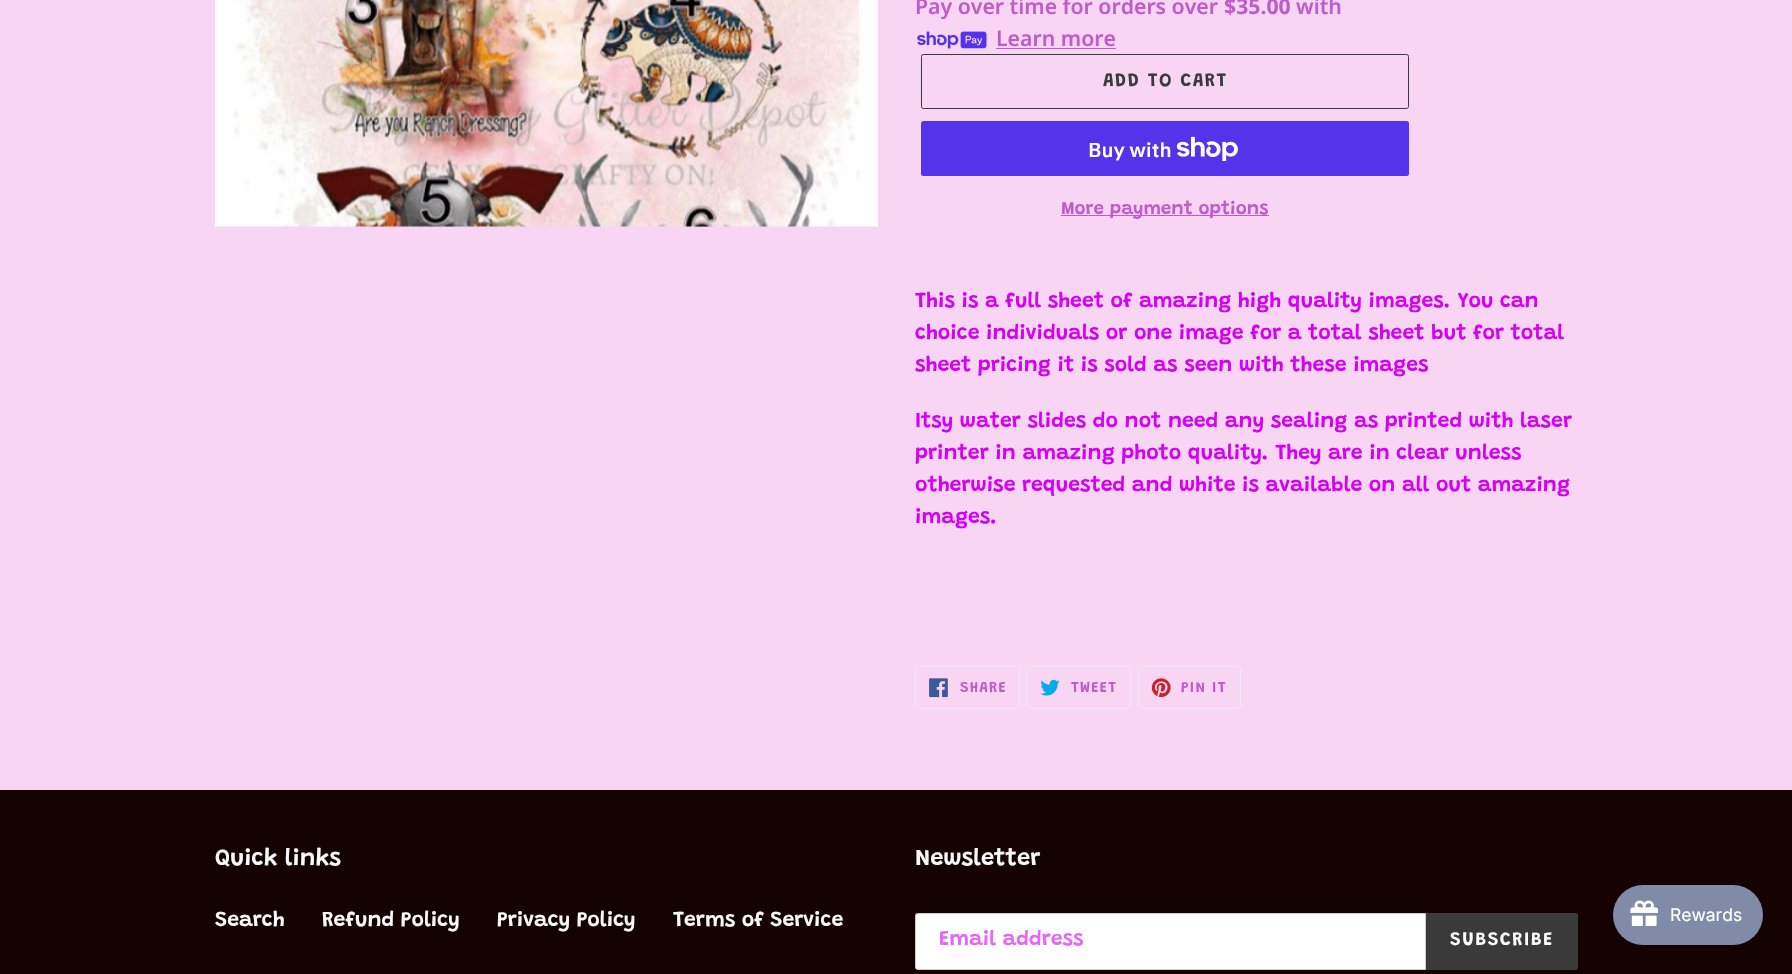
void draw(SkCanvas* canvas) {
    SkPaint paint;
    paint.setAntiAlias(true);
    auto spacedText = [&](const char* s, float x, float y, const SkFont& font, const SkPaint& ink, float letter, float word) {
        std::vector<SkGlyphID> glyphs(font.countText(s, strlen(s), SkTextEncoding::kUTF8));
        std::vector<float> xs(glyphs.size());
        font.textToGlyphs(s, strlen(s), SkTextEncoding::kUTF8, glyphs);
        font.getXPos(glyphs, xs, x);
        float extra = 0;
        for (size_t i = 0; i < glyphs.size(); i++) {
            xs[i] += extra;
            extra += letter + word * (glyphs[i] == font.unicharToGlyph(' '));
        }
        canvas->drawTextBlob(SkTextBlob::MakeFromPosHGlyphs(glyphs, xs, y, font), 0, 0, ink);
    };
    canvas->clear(0xFFF7D5F3);
    canvas->drawImageRect(SkImages::DeferredFromEncodedData(SkData::MakeFromFileName("img1.png")), SkRect::MakeXYWH(215, 0, 663, 227), SkSamplingOptions());
    SkFont font1(fontMgr->matchFamilyStyle("Noto Sans", SkFontStyle(600, SkFontStyle::kNormal_Width, SkFontStyle::kUpright_Slant)), 21.25f);
    font1.setSubpixel(true);
    paint.setColor(0xFFC05BCE);
    canvas->drawString("Pay over time for orders over", 915, 14, font1, paint);
    SkFont font2(fontMgr->matchFamilyStyle("Noto Sans", SkFontStyle::Bold()), 21.25f);
    font2.setSubpixel(true);
    canvas->drawString("$35.00", 1224, 14, font2, paint);
    canvas->drawString("with", 1296, 14, font1, paint);
    canvas->drawImageRect(SkImages::DeferredFromEncodedData(SkData::MakeFromFileName("img2.png")), SkRect::MakeXYWH(917, 31, 70, 18), SkSamplingOptions());
    canvas->drawString("Learn more", 996, 46, font1, paint);
    canvas->drawRect(SkRect::MakeXYWH(996, 48, 120, 1), paint);
    paint.setStyle(SkPaint::kStroke_Style);
    paint.setStrokeWidth(1);
    paint.setColor(0xFF3A3A3A);
    canvas->drawRoundRect(SkRect::MakeXYWH(921.5f, 54.5f, 487, 54), 2, 2, paint);
    SkFont font3(fontMgr->matchFamilyStyle("Grandstander", SkFontStyle(600, SkFontStyle::kNormal_Width, SkFontStyle::kUpright_Slant)), 18.75f);
    font3.setSubpixel(true);
    paint.setStyle(SkPaint::kFill_Style);
    spacedText("ADD TO CART", 1103, 86, font3, paint, 1.5f, 0);
    paint.setColor(0xFF5433EB);
    canvas->drawRoundRect(SkRect::MakeXYWH(921, 121, 488, 55), 2.5f, 2.5f, paint);
    SkFont font4(fontMgr->matchFamilyStyle("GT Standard", SkFontStyle(600, SkFontStyle::kNormal_Width, SkFontStyle::kUpright_Slant)), 20);
    font4.setSubpixel(true);
    paint.setColor(0xFFFFFFFF);
    canvas->drawString("Buy with", 1088, 157, font4, paint);
    canvas->drawImageRect(SkImages::DeferredFromEncodedData(SkData::MakeFromFileName("img3.png")), SkRect::MakeXYWH(1176, 136, 62, 25), SkSamplingOptions());
    paint.setColor(0xFFC05BCE);
    canvas->drawRect(SkRect::MakeXYWH(1061, 215, 208, 1), paint);
    canvas->drawString("More payment options", 1061, 214, font3, paint);
    SkFont font5(fontMgr->matchFamilyStyle("Grandstander", SkFontStyle(600, SkFontStyle::kNormal_Width, SkFontStyle::kUpright_Slant)), 21.25f);
    font5.setSubpixel(true);
    paint.setColor(0xFFD600F4);
    canvas->drawString("This is a full sheet of amazing high quality images. You can", 915, 307, font5, paint);
    canvas->drawString("choice individuals or one image for a total sheet but for total", 915, 339, font5, paint);
    canvas->drawString("sheet pricing it is sold as seen with these images", 915, 371, font5, paint);
    canvas->drawString("Itsy water slides do not need any sealing as printed with laser", 915, 427, font5, paint);
    canvas->drawString("printer in amazing photo quality. They are in clear unless", 915, 459, font5, paint);
    canvas->drawString("otherwise requested and white is available on all out amazing", 915, 491, font5, paint);
    canvas->drawString("images.", 915, 523, font5, paint);
    paint.setStyle(SkPaint::kStroke_Style);
    paint.setColor(0xFFEBEBEB);
    canvas->drawRoundRect(SkRect::MakeXYWH(915.5f, 666.5f, 104, 42), 2, 2, paint);
    canvas->drawImageRect(SkImages::DeferredFromEncodedData(SkData::MakeFromFileName("img4.png")), SkRect::MakeXYWH(929, 678, 19, 20), SkSamplingOptions());
    SkFont font6(fontMgr->matchFamilyStyle("Grandstander", SkFontStyle(600, SkFontStyle::kNormal_Width, SkFontStyle::kUpright_Slant)), 15);
    font6.setSubpixel(true);
    paint.setStyle(SkPaint::kFill_Style);
    paint.setColor(0xFFC05BCE);
    spacedText("SHARE", 960, 692, font6, paint, 1.25f, 0);
    paint.setStyle(SkPaint::kStroke_Style);
    paint.setColor(0xFFEBEBEB);
    canvas->drawRoundRect(SkRect::MakeXYWH(1026.5f, 666.5f, 104, 42), 2, 2, paint);
    canvas->drawImageRect(SkImages::DeferredFromEncodedData(SkData::MakeFromFileName("img5.png")), SkRect::MakeXYWH(1040, 679, 20, 17), SkSamplingOptions());
    paint.setStyle(SkPaint::kFill_Style);
    paint.setColor(0xFFC05BCE);
    spacedText("TWEET", 1071, 692, font6, paint, 1.25f, 0);
    paint.setStyle(SkPaint::kStroke_Style);
    paint.setColor(0xFFEBEBEB);
    canvas->drawRoundRect(SkRect::MakeXYWH(1138.5f, 666.5f, 102, 42), 2, 2, paint);
    canvas->drawImageRect(SkImages::DeferredFromEncodedData(SkData::MakeFromFileName("img6.png")), SkRect::MakeXYWH(1151, 678, 20, 20), SkSamplingOptions());
    paint.setStyle(SkPaint::kFill_Style);
    paint.setColor(0xFFC05BCE);
    spacedText("PIN IT", 1181, 692, font6, paint, 1.25f, 0);
    paint.setColor(0xFF150202);
    canvas->drawRect(SkRect::MakeXYWH(0, 790, 1792, 184), paint);
    SkFont font7(fontMgr->matchFamilyStyle("Grandstander", SkFontStyle(600, SkFontStyle::kNormal_Width, SkFontStyle::kUpright_Slant)), 23.75f);
    font7.setSubpixel(true);
    paint.setColor(0xFFF9F9F9);
    canvas->drawString("Quick links", 215, 865, font7, paint);
    canvas->drawString("Search", 215, 926, font5, paint);
    canvas->drawString("Refund Policy", 322, 926, font5, paint);
    canvas->drawString("Privacy Policy", 497, 926, font5, paint);
    canvas->drawString("Terms of Service", 673, 926, font5, paint);
    canvas->drawString("Newsletter", 915, 865, font7, paint);
    paint.setColor(0xFFFFFFFF);
    canvas->drawPath(SkPathBuilder().moveTo(917.5f, 913.5f).lineTo(1425.5f, 913.5f).lineTo(1425.5f, 969.5f).lineTo(917.5f, 969.5f).cubicTo(916.5f, 969.5f, 915.5f, 968.5f, 915.5f, 967.5f).lineTo(915.5f, 915.5f).cubicTo(915.5f, 914.5f, 916.5f, 913.5f, 917.5f, 913.5f).close().detach(), paint);
    paint.setStyle(SkPaint::kStroke_Style);
    paint.setColor(0xFFCCCCCC);
    canvas->drawPath(SkPathBuilder().moveTo(917.5f, 913.5f).lineTo(1425.5f, 913.5f).lineTo(1425.5f, 969.5f).lineTo(917.5f, 969.5f).cubicTo(916.5f, 969.5f, 915.5f, 968.5f, 915.5f, 967.5f).lineTo(915.5f, 915.5f).cubicTo(915.5f, 914.5f, 916.5f, 913.5f, 917.5f, 913.5f).close().detach(), paint);
    canvas->save();
    canvas->clipRect(SkRect::MakeXYWH(939, 930, 464, 21));
    paint.setStyle(SkPaint::kFill_Style);
    paint.setColor(0xFFE666F8);
    canvas->drawString("Email address", 939, 945, font5, paint);
    canvas->restore();
    paint.setColor(0xFF3A3A3A);
    canvas->drawPath(SkPathBuilder().moveTo(1426, 913).lineTo(1575.5f, 913).cubicTo(1577, 913, 1578, 914, 1578, 915.5f).lineTo(1578, 967.5f).cubicTo(1578, 969, 1577, 970, 1575.5f, 970).lineTo(1426, 970).close().detach(), paint);
    paint.setColor(0xFFFFFFFF);
    spacedText("SUBSCRIBE", 1450, 945, font3, paint, 1.5f, 0);
    paint.setColor(0xFF808BA7);
    canvas->drawRoundRect(SkRect::MakeXYWH(1613, 885, 150, 60), 30, 30, paint);
    canvas->drawImageRect(SkImages::DeferredFromEncodedData(SkData::MakeFromFileName("img7.png")), SkRect::MakeXYWH(1630, 900, 28, 26), SkSamplingOptions());
    SkFont font8(fontMgr->matchFamilyStyle("Inter", SkFontStyle::Normal()), 17.5f);
    font8.setSubpixel(true);
    paint.setColor(0xFFFFFFFF);
    canvas->drawString("Rewards", 1670, 921, font8, paint);
}
